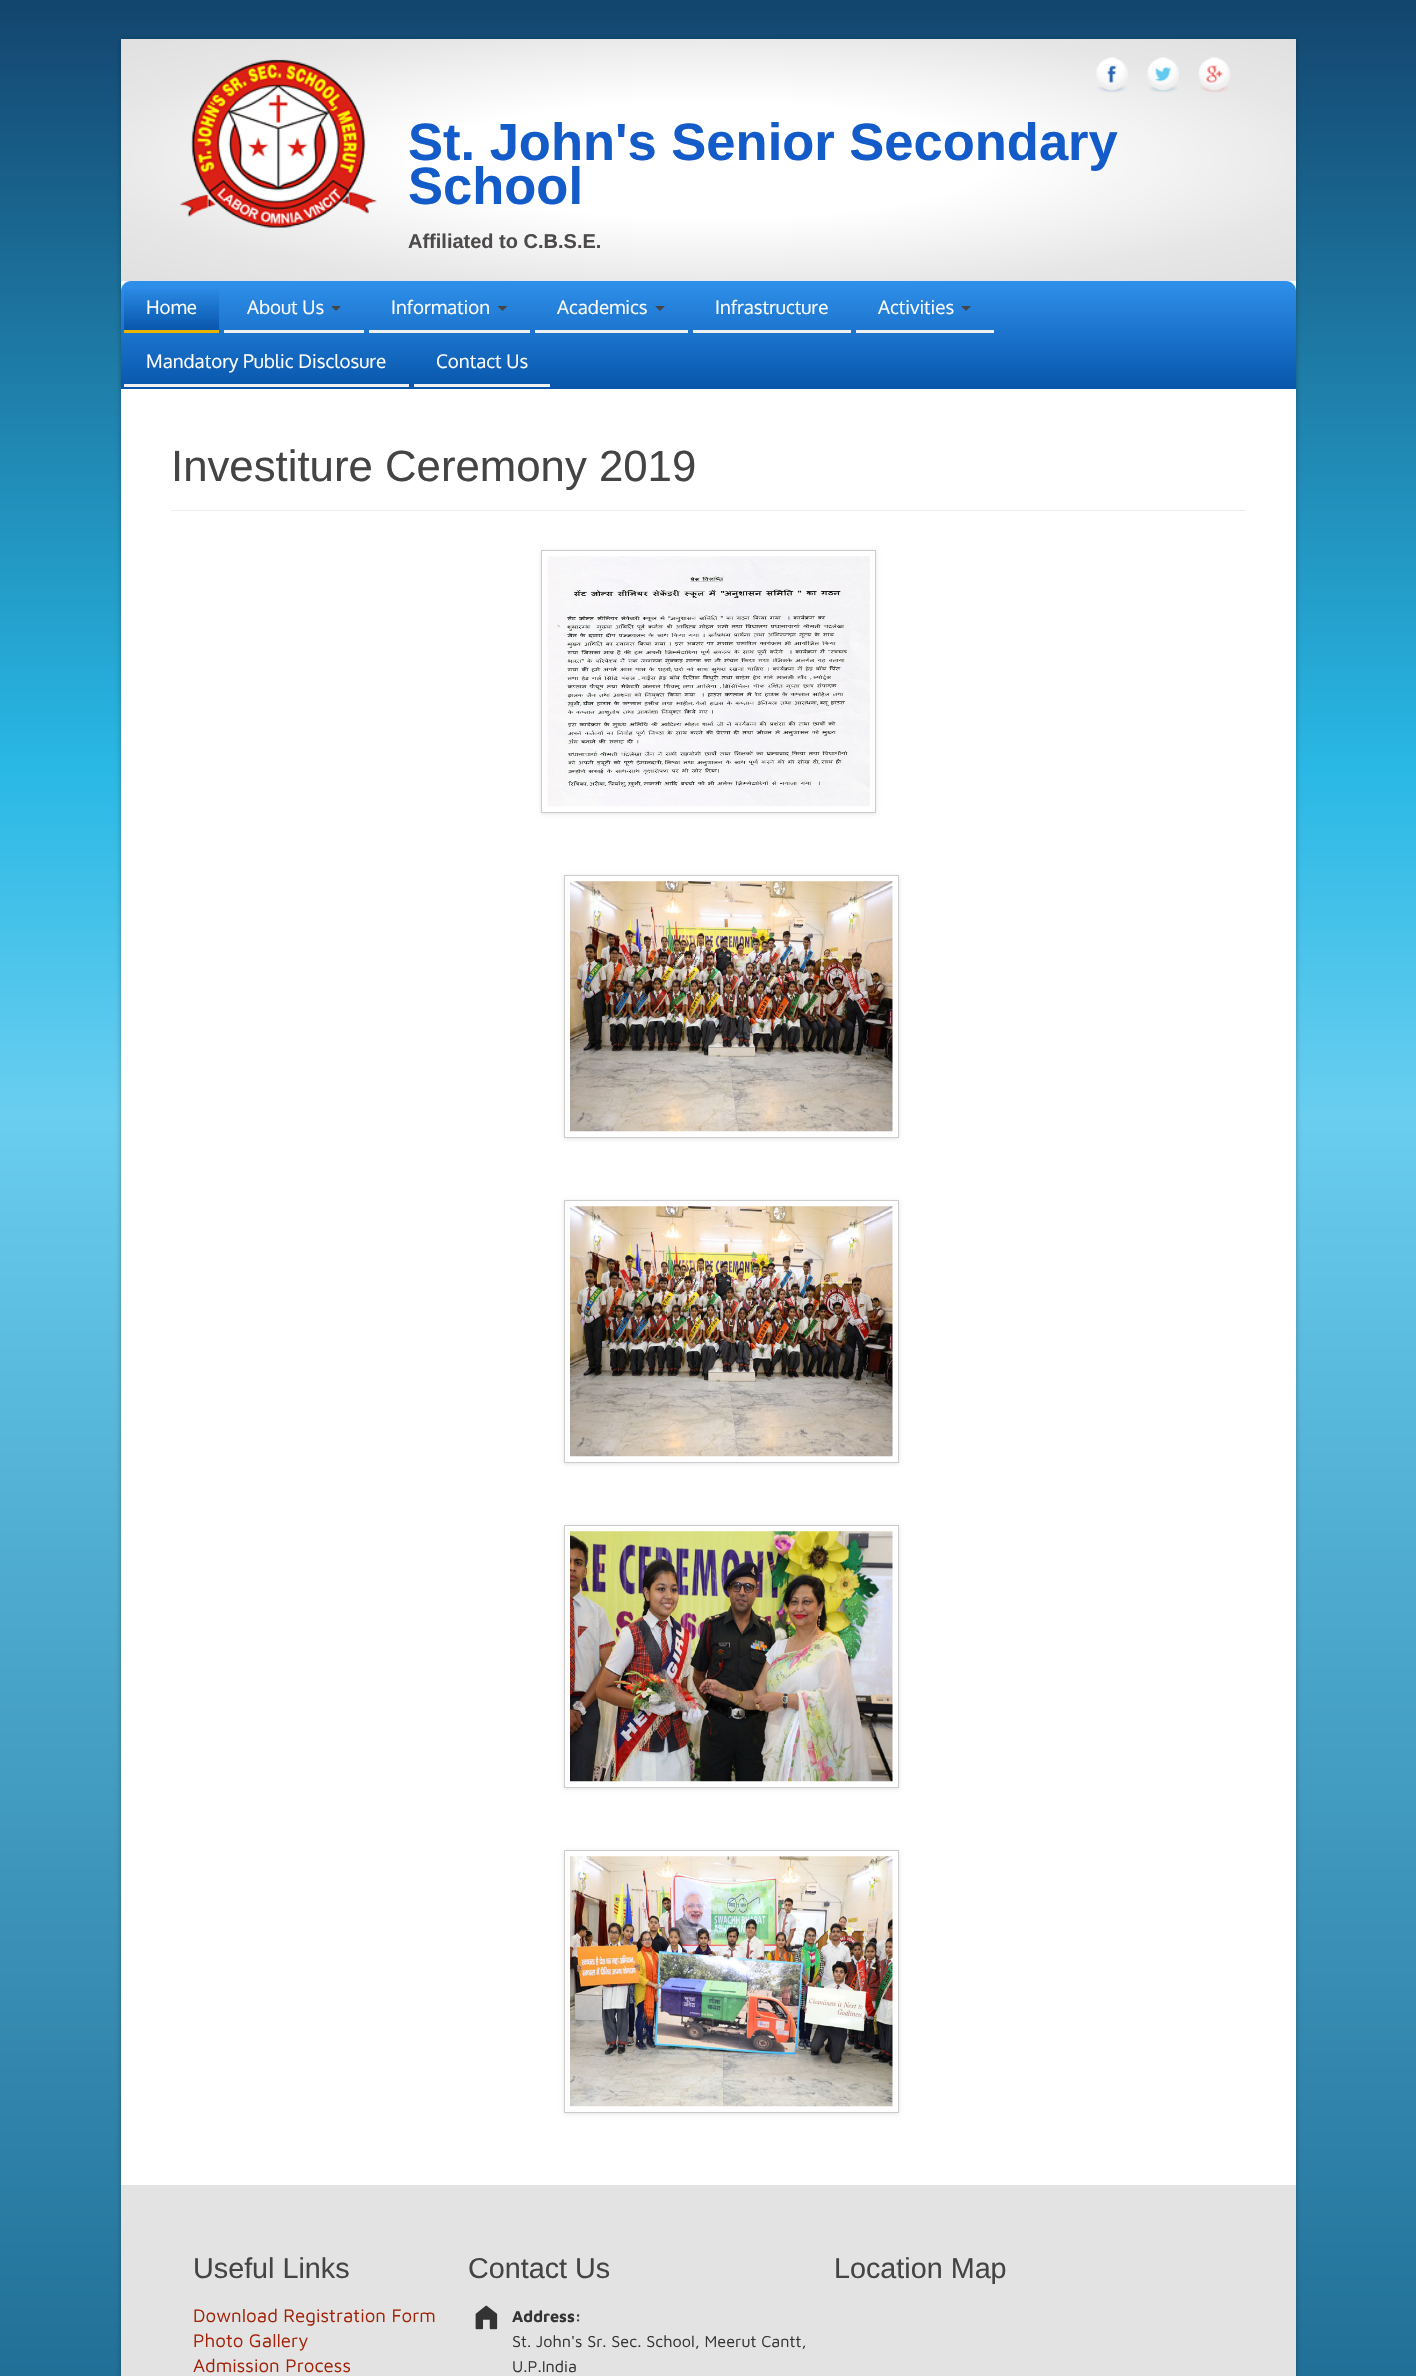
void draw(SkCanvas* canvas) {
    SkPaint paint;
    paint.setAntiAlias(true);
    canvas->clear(0xFFFFFFFF);
    {
        const SkColor colors[] = {0xFF13456E, 0xFF29B8E5, 0xFF69CEF0, 0xFF115B85};
        const float stops[] = {0, 0.29f, 0.42f, 1};
        const SkPoint ends[] = {{708, 0}, {708, 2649}};
        paint.setShader(SkGradientShader::MakeLinear(ends, colors, stops, 4, SkTileMode::kClamp));
        paint.setAlpha(255);
    }
    canvas->drawRect(SkRect::MakeXYWH(0, 0, 1416, 2376), paint);
    paint.setShader(nullptr);
    paint.setColor(0x4D000000);
    paint.setMaskFilter(SkMaskFilter::MakeBlur(kNormal_SkBlurStyle, 2.5f));
    canvas->drawRect(SkRect::MakeXYWH(121, 40, 1175, 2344), paint);
    paint.setMaskFilter(nullptr);
    paint.setColor(0xFFFFFFFF);
    canvas->drawRect(SkRect::MakeXYWH(121, 281, 1175, 1904), paint);
    {
        const SkColor colors[] = {0xFFFFFFFF, 0xFFFFFFFF, 0xFFE6E6E6, 0xFFE0E0E0};
        const float stops[] = {0, 0.34f, 0.77f, 1};
        SkMatrix m = SkMatrix::Translate(709, 160).preScale(831, 171);
        paint.setShader(SkGradientShader::MakeRadial({0, 0}, 1, colors, stops, 4, SkTileMode::kClamp, 0, &m));
        paint.setAlpha(255);
    }
    canvas->drawRect(SkRect::MakeXYWH(121, 39, 1175, 242), paint);
    canvas->drawImageRect(SkImages::DeferredFromEncodedData(SkData::MakeFromFileName("img1.png")), SkRect::MakeXYWH(180, 59, 197, 169), SkSamplingOptions());
    SkFont font1(fontMgr->matchFamilyStyle("Liberation Sans", SkFontStyle::Bold()), 52.5f);
    font1.setSubpixel(true);
    paint.setShader(nullptr);
    paint.setColor(0xFF135BC8);
    canvas->drawString("St. John's Senior Secondary", 408, 160, font1, paint);
    canvas->drawString("School", 408, 204, font1, paint);
    SkFont font2(fontMgr->matchFamilyStyle("Liberation Sans", SkFontStyle::Bold()), 20);
    font2.setSubpixel(true);
    paint.setColor(0xFF4D4A4A);
    canvas->drawString("Affiliated to C.B.S.E.", 408, 248, font2, paint);
    canvas->drawImageRect(SkImages::DeferredFromEncodedData(SkData::MakeFromFileName("img2.png")), SkRect::MakeXYWH(1096, 57, 32, 36), SkSamplingOptions());
    canvas->drawImageRect(SkImages::DeferredFromEncodedData(SkData::MakeFromFileName("img3.png")), SkRect::MakeXYWH(1147, 57, 32, 36), SkSamplingOptions());
    canvas->drawImageRect(SkImages::DeferredFromEncodedData(SkData::MakeFromFileName("img4.png")), SkRect::MakeXYWH(1198, 57, 33, 36), SkSamplingOptions());
    {
        const SkColor colors[] = {0xFF2F90EB, 0xFF0756AB};
        const float stops[] = {0, 1};
        const SkPoint ends[] = {{709, 281}, {709, 389}};
        paint.setShader(SkGradientShader::MakeLinear(ends, colors, stops, 2, SkTileMode::kClamp));
        paint.setAlpha(255);
    }
    canvas->drawPath(SkPathBuilder().moveTo(131, 281).lineTo(1286, 281).cubicTo(1291.5f, 281, 1296, 285.5f, 1296, 291).lineTo(1296, 389).lineTo(121, 389).lineTo(121, 291).cubicTo(121, 285.5f, 125.5f, 281, 131, 281).close().detach(), paint);
    {
        const SkColor colors[] = {0xFF2F90EB, 0xFF0756AB};
        const float stops[] = {0, 1};
        const SkPoint ends[] = {{171, 284}, {171, 330}};
        paint.setShader(SkGradientShader::MakeLinear(ends, colors, stops, 2, SkTileMode::kClamp));
        paint.setAlpha(255);
    }
    canvas->drawRect(SkRect::MakeXYWH(124, 289, 95, 41), paint);
    paint.setShader(nullptr);
    paint.setColor(0xFFEBB400);
    canvas->drawRect(SkRect::MakeXYWH(124, 330, 95, 3), paint);
    SkFont font3(fontMgr->matchFamilyStyle("Oxygen", SkFontStyle::Normal()), 18.75f);
    font3.setSubpixel(true);
    paint.setColor(0xFFFFFFFF);
    canvas->drawString("Home", 146, 314, font3, paint);
    paint.setColor(0xFFF0F0F0);
    canvas->drawRect(SkRect::MakeXYWH(224, 330, 140, 3), paint);
    paint.setColor(0xFFFFFFFF);
    canvas->drawString("About Us", 247, 314, font3, paint);
    paint.setColor(0xFF454444);
    canvas->drawPath(SkPathBuilder().moveTo(331, 306).lineTo(341, 306).lineTo(336, 311).close().detach(), paint);
    paint.setColor(0xFFF0F0F0);
    canvas->drawRect(SkRect::MakeXYWH(369, 330, 161, 3), paint);
    paint.setColor(0xFFFFFFFF);
    canvas->drawString("Information", 391, 314, font3, paint);
    paint.setColor(0xFF454444);
    canvas->drawPath(SkPathBuilder().moveTo(497.5f, 306).lineTo(507.5f, 306).lineTo(502.5f, 311).close().detach(), paint);
    paint.setColor(0xFFF0F0F0);
    canvas->drawRect(SkRect::MakeXYWH(535, 330, 153, 3), paint);
    paint.setColor(0xFFFFFFFF);
    canvas->drawString("Academics", 557, 314, font3, paint);
    paint.setColor(0xFF454444);
    canvas->drawPath(SkPathBuilder().moveTo(655, 306).lineTo(665, 306).lineTo(660, 311).close().detach(), paint);
    paint.setColor(0xFFF0F0F0);
    canvas->drawRect(SkRect::MakeXYWH(693, 330, 158, 3), paint);
    paint.setColor(0xFFFFFFFF);
    canvas->drawString("Infrastructure", 715, 314, font3, paint);
    paint.setColor(0xFFF0F0F0);
    canvas->drawRect(SkRect::MakeXYWH(856, 330, 138, 3), paint);
    paint.setColor(0xFFFFFFFF);
    canvas->drawString("Activities", 878, 314, font3, paint);
    paint.setColor(0xFF454444);
    canvas->drawPath(SkPathBuilder().moveTo(961, 306).lineTo(971, 306).lineTo(966, 311).close().detach(), paint);
    paint.setColor(0xFFF0F0F0);
    canvas->drawRect(SkRect::MakeXYWH(124, 384, 285, 3), paint);
    paint.setColor(0xFFFFFFFF);
    canvas->drawString("Mandatory Public Disclosure", 146, 368, font3, paint);
    paint.setColor(0xFFF0F0F0);
    canvas->drawRect(SkRect::MakeXYWH(414, 384, 136, 3), paint);
    paint.setColor(0xFFFFFFFF);
    canvas->drawString("Contact Us", 436, 368, font3, paint);
    SkFont font4(fontMgr->matchFamilyStyle("Liberation Sans", SkFontStyle::Normal()), 43.75f);
    font4.setSubpixel(true);
    paint.setColor(0xFF454444);
    canvas->drawString("Investiture Ceremony 2019", 171, 481, font4, paint);
    paint.setColor(0xFFEEEEEE);
    canvas->drawRect(SkRect::MakeXYWH(171, 510, 1075, 1), paint);
    paint.setColor(0x1A000000);
    paint.setMaskFilter(SkMaskFilter::MakeBlur(kNormal_SkBlurStyle, 2));
    canvas->drawRect(SkRect::MakeXYWH(541, 551, 335, 263), paint);
    paint.setMaskFilter(nullptr);
    paint.setColor(0xFFFFFFFF);
    canvas->drawRect(SkRect::MakeXYWH(541.5f, 550.5f, 334, 262), paint);
    paint.setStyle(SkPaint::kStroke_Style);
    paint.setStrokeWidth(1);
    paint.setColor(0xFFCCCCCC);
    canvas->drawRect(SkRect::MakeXYWH(541.5f, 550.5f, 334, 262), paint);
    canvas->drawImageRect(SkImages::DeferredFromEncodedData(SkData::MakeFromFileName("img5.png")), SkRect::MakeXYWH(547, 556, 323, 251), SkSamplingOptions());
    paint.setStyle(SkPaint::kFill_Style);
    paint.setColor(0x1A000000);
    paint.setMaskFilter(SkMaskFilter::MakeBlur(kNormal_SkBlurStyle, 2));
    canvas->drawRect(SkRect::MakeXYWH(564, 876, 335, 263), paint);
    paint.setMaskFilter(nullptr);
    paint.setColor(0xFFFFFFFF);
    canvas->drawRect(SkRect::MakeXYWH(564.5f, 875.5f, 334, 262), paint);
    paint.setStyle(SkPaint::kStroke_Style);
    paint.setColor(0xFFCCCCCC);
    canvas->drawRect(SkRect::MakeXYWH(564.5f, 875.5f, 334, 262), paint);
    canvas->drawImageRect(SkImages::DeferredFromEncodedData(SkData::MakeFromFileName("img6.png")), SkRect::MakeXYWH(570, 881, 323, 251), SkSamplingOptions());
    paint.setStyle(SkPaint::kFill_Style);
    paint.setColor(0x1A000000);
    paint.setMaskFilter(SkMaskFilter::MakeBlur(kNormal_SkBlurStyle, 2));
    canvas->drawRect(SkRect::MakeXYWH(564, 1201, 335, 263), paint);
    paint.setMaskFilter(nullptr);
    paint.setColor(0xFFFFFFFF);
    canvas->drawRect(SkRect::MakeXYWH(564.5f, 1200.5f, 334, 262), paint);
    paint.setStyle(SkPaint::kStroke_Style);
    paint.setColor(0xFFCCCCCC);
    canvas->drawRect(SkRect::MakeXYWH(564.5f, 1200.5f, 334, 262), paint);
    canvas->drawImageRect(SkImages::DeferredFromEncodedData(SkData::MakeFromFileName("img6.png")), SkRect::MakeXYWH(570, 1206, 323, 251), SkSamplingOptions());
    paint.setStyle(SkPaint::kFill_Style);
    paint.setColor(0x1A000000);
    paint.setMaskFilter(SkMaskFilter::MakeBlur(kNormal_SkBlurStyle, 2));
    canvas->drawRect(SkRect::MakeXYWH(564, 1526, 335, 263), paint);
    paint.setMaskFilter(nullptr);
    paint.setColor(0xFFFFFFFF);
    canvas->drawRect(SkRect::MakeXYWH(564.5f, 1525.5f, 334, 262), paint);
    paint.setStyle(SkPaint::kStroke_Style);
    paint.setColor(0xFFCCCCCC);
    canvas->drawRect(SkRect::MakeXYWH(564.5f, 1525.5f, 334, 262), paint);
    canvas->drawImageRect(SkImages::DeferredFromEncodedData(SkData::MakeFromFileName("img7.png")), SkRect::MakeXYWH(570, 1531, 323, 251), SkSamplingOptions());
    paint.setStyle(SkPaint::kFill_Style);
    paint.setColor(0x1A000000);
    paint.setMaskFilter(SkMaskFilter::MakeBlur(kNormal_SkBlurStyle, 2));
    canvas->drawRect(SkRect::MakeXYWH(564, 1851, 335, 263), paint);
    paint.setMaskFilter(nullptr);
    paint.setColor(0xFFFFFFFF);
    canvas->drawRect(SkRect::MakeXYWH(564.5f, 1850.5f, 334, 262), paint);
    paint.setStyle(SkPaint::kStroke_Style);
    paint.setColor(0xFFCCCCCC);
    canvas->drawRect(SkRect::MakeXYWH(564.5f, 1850.5f, 334, 262), paint);
    canvas->drawImageRect(SkImages::DeferredFromEncodedData(SkData::MakeFromFileName("img8.png")), SkRect::MakeXYWH(570, 1856, 323, 251), SkSamplingOptions());
    paint.setStyle(SkPaint::kFill_Style);
    paint.setColor(0xFFE3E3E3);
    canvas->drawRect(SkRect::MakeXYWH(121, 2185, 1175, 191), paint);
    SkFont font5(fontMgr->matchFamilyStyle("Liberation Sans", SkFontStyle::Normal()), 28.75f);
    font5.setSubpixel(true);
    paint.setColor(0xFF454444);
    canvas->drawString("Useful Links", 193, 2278, font5, paint);
    SkFont font6(fontMgr->matchFamilyStyle("Maven Pro", SkFontStyle::Normal()), 18.75f);
    font6.setSubpixel(true);
    paint.setColor(0xFFA22207);
    canvas->drawString("Download Registration Form", 193, 2322, font6, paint);
    canvas->drawString("Photo Gallery", 193, 2347, font6, paint);
    canvas->drawString("Admission Process", 193, 2372, font6, paint);
    paint.setColor(0xFF454444);
    canvas->drawString("Contact Us", 468, 2278, font5, paint);
    canvas->drawImageRect(SkImages::DeferredFromEncodedData(SkData::MakeFromFileName("img9.png")), SkRect::MakeXYWH(475, 2305, 23, 25), SkSamplingOptions());
    SkFont font7(fontMgr->matchFamilyStyle("Maven Pro", SkFontStyle::Bold()), 16.25f);
    font7.setSubpixel(true);
    paint.setColor(0xFF333333);
    canvas->drawString("Address:", 512, 2322, font7, paint);
    SkFont font8(fontMgr->matchFamilyStyle("Maven Pro", SkFontStyle::Normal()), 16.25f);
    font8.setSubpixel(true);
    canvas->drawString("St. John's Sr. Sec. School, Meerut Cantt,", 512, 2347, font8, paint);
    canvas->drawString("U.P.India", 512, 2372, font8, paint);
    paint.setColor(0xFF454444);
    canvas->drawString("Location Map", 834, 2278, font5, paint);
}
